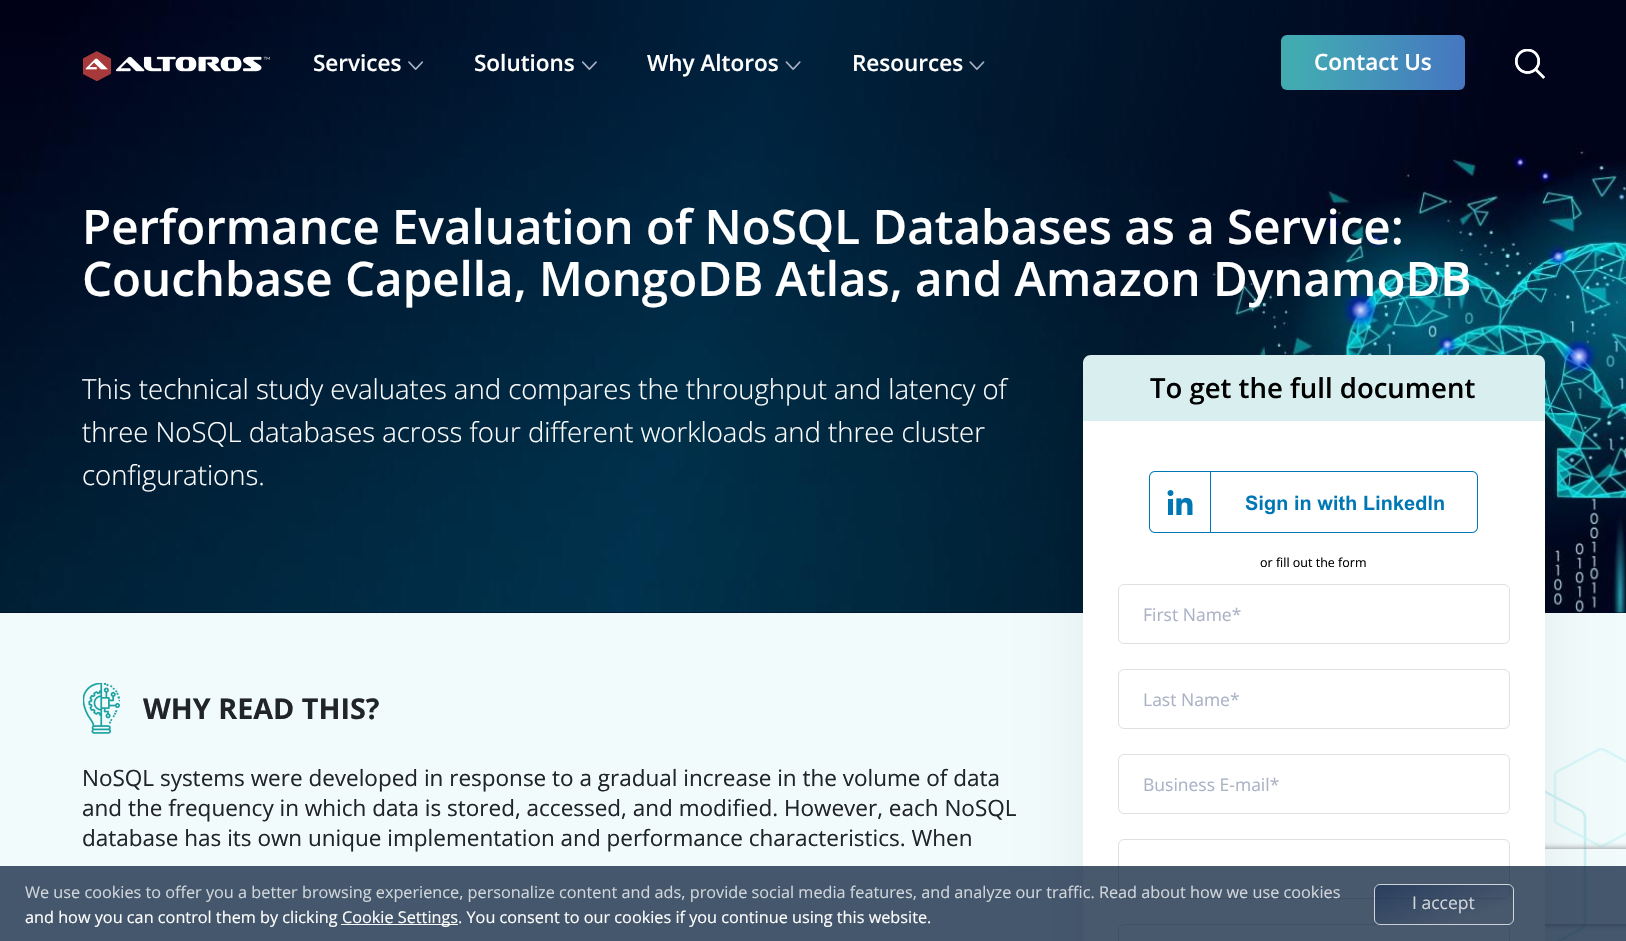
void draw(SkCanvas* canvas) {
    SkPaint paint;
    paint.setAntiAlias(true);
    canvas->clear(0xFF010822);
    canvas->drawImageRect(SkImages::DeferredFromEncodedData(SkData::MakeFromFileName("img7.png")), SkRect::MakeXYWH(0, 0, 1626, 613), SkSamplingOptions());
    canvas->drawImageRect(SkImages::DeferredFromEncodedData(SkData::MakeFromFileName("img1.png")), SkRect::MakeXYWH(83, 51, 187, 30), SkSamplingOptions());
    SkFont font1(fontMgr->matchFamilyStyle("Open Sans", SkFontStyle(600, SkFontStyle::kNormal_Width, SkFontStyle::kUpright_Slant)), 22.5f);
    font1.setSubpixel(true);
    paint.setColor(0xFFFFFFFF);
    canvas->drawString("Services", 313, 71, font1, paint);
    canvas->drawImageRect(SkImages::DeferredFromEncodedData(SkData::MakeFromFileName("img2.png")), SkRect::MakeXYWH(408, 61, 16, 9), SkSamplingOptions());
    canvas->drawString("Solutions", 474, 71, font1, paint);
    canvas->drawImageRect(SkImages::DeferredFromEncodedData(SkData::MakeFromFileName("img3.png")), SkRect::MakeXYWH(581, 61, 16, 9), SkSamplingOptions());
    canvas->drawString("Why Altoros", 647, 71, font1, paint);
    canvas->drawImageRect(SkImages::DeferredFromEncodedData(SkData::MakeFromFileName("img4.png")), SkRect::MakeXYWH(785, 61, 16, 9), SkSamplingOptions());
    canvas->drawString("Resources", 852, 71, font1, paint);
    canvas->drawImageRect(SkImages::DeferredFromEncodedData(SkData::MakeFromFileName("img5.png")), SkRect::MakeXYWH(969, 61, 16, 9), SkSamplingOptions());
    {
        const SkColor colors[] = {0xFF42ABB2, 0xFF4673C2};
        const float stops[] = {0.08f, 1};
        const SkPoint ends[] = {{1281, 60}, {1475, 65}};
        paint.setShader(SkGradientShader::MakeLinear(ends, colors, stops, 2, SkTileMode::kClamp));
        paint.setAlpha(255);
    }
    canvas->drawRoundRect(SkRect::MakeXYWH(1281, 35, 184, 55), 6, 6, paint);
    paint.setShader(nullptr);
    paint.setColor(0xFFFFFFFF);
    canvas->drawString("Contact Us", 1314, 70, font1, paint);
    canvas->drawImageRect(SkImages::DeferredFromEncodedData(SkData::MakeFromFileName("img6.png")), SkRect::MakeXYWH(1515, 49, 30, 30), SkSamplingOptions());
    SkFont font2(fontMgr->matchFamilyStyle("Open Sans", SkFontStyle(600, SkFontStyle::kNormal_Width, SkFontStyle::kUpright_Slant)), 47.5f);
    font2.setSubpixel(true);
    canvas->drawString("Performance Evaluation of NoSQL Databases as a Service:", 82, 244, font2, paint);
    canvas->drawString("Couchbase Capella, MongoDB Atlas, and Amazon DynamoDB", 82, 296, font2, paint);
    SkFont font3(fontMgr->matchFamilyStyle("Open Sans", SkFontStyle(300, SkFontStyle::kNormal_Width, SkFontStyle::kUpright_Slant)), 27.5f);
    font3.setSubpixel(true);
    canvas->drawString("This technical study evaluates and compares the throughput and latency of", 82, 399, font3, paint);
    canvas->drawString("three NoSQL databases across four different workloads and three cluster", 82, 442, font3, paint);
    canvas->drawString("configurations.", 82, 485, font3, paint);
    paint.setColor(0xFFF1FBFC);
    canvas->drawRect(SkRect::MakeXYWH(0, 613, 1626, 328), paint);
    canvas->drawImageRect(SkImages::DeferredFromEncodedData(SkData::MakeFromFileName("img10.png")), SkRect::MakeXYWH(1545, 748, 81, 193), SkSamplingOptions());
    paint.setColor(0x0F000000);
    paint.setMaskFilter(SkMaskFilter::MakeBlur(kNormal_SkBlurStyle, 29));
    canvas->drawRoundRect(SkRect::MakeXYWH(1083, 370, 462, 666), 8, 8, paint);
    paint.setMaskFilter(nullptr);
    paint.setColor(0xFFD9EFEF);
    canvas->drawPath(SkPathBuilder().moveTo(1091, 355).lineTo(1537, 355).cubicTo(1541.5f, 355, 1545, 358.5f, 1545, 363).lineTo(1545, 421).lineTo(1083, 421).lineTo(1083, 363).cubicTo(1083, 358.5f, 1086.5f, 355, 1091, 355).close().detach(), paint);
    SkFont font4(fontMgr->matchFamilyStyle("Open Sans", SkFontStyle(600, SkFontStyle::kNormal_Width, SkFontStyle::kUpright_Slant)), 27.5f);
    font4.setSubpixel(true);
    paint.setColor(0xFF000000);
    canvas->drawString("To get the full document", 1150, 398, font4, paint);
    canvas->save();
    canvas->clipPath(SkPathBuilder(SkPathFillType::kEvenOdd).moveTo(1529, 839).lineTo(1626, 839).lineTo(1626, 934).lineTo(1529, 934).close().moveTo(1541.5f, 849).lineTo(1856.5f, 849).cubicTo(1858, 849, 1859, 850, 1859, 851.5f).lineTo(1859, 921.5f).cubicTo(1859, 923, 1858, 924, 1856.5f, 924).lineTo(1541.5f, 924).cubicTo(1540, 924, 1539, 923, 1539, 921.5f).lineTo(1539, 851.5f).cubicTo(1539, 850, 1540, 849, 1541.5f, 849).close().detach(), true);
    paint.setColor(0xFF808080);
    paint.setMaskFilter(SkMaskFilter::MakeBlur(kNormal_SkBlurStyle, 3));
    canvas->drawRoundRect(SkRect::MakeXYWH(1539, 849, 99, 75), 2.5f, 2.5f, paint);
    paint.setMaskFilter(nullptr);
    canvas->restore();
    paint.setColor(0xFFFFFFFF);
    canvas->drawRect(SkRect::MakeXYWH(1083, 421, 462, 520), paint);
    canvas->drawImageRect(SkImages::DeferredFromEncodedData(SkData::MakeFromFileName("img8.png")), SkRect::MakeXYWH(1149, 471, 329, 62), SkSamplingOptions());
    SkFont font5(fontMgr->matchFamilyStyle("Open Sans", SkFontStyle::Normal()), 12.5f);
    font5.setSubpixel(true);
    paint.setColor(0xFF000000);
    canvas->drawString("or fill out the form", 1260, 567, font5, paint);
    paint.setStyle(SkPaint::kStroke_Style);
    paint.setStrokeWidth(1);
    paint.setColor(0xFFE0E0E0);
    canvas->drawRoundRect(SkRect::MakeXYWH(1118.5f, 584.5f, 391, 59), 5.5f, 5.5f, paint);
    SkFont font6(fontMgr->matchFamilyStyle("Open Sans", SkFontStyle::Normal()), 17.5f);
    font6.setSubpixel(true);
    paint.setStyle(SkPaint::kFill_Style);
    paint.setColor(0xFFABB2C5);
    canvas->drawString("First Name*", 1143, 621, font6, paint);
    paint.setStyle(SkPaint::kStroke_Style);
    paint.setColor(0xFFE0E0E0);
    canvas->drawRoundRect(SkRect::MakeXYWH(1118.5f, 669.5f, 391, 59), 5.5f, 5.5f, paint);
    paint.setStyle(SkPaint::kFill_Style);
    paint.setColor(0xFFABB2C5);
    canvas->drawString("Last Name*", 1143, 706, font6, paint);
    paint.setStyle(SkPaint::kStroke_Style);
    paint.setColor(0xFFE0E0E0);
    canvas->drawRoundRect(SkRect::MakeXYWH(1118.5f, 754.5f, 391, 59), 5.5f, 5.5f, paint);
    paint.setStyle(SkPaint::kFill_Style);
    paint.setColor(0xFFABB2C5);
    canvas->drawString("Business E-mail*", 1143, 791, font6, paint);
    paint.setStyle(SkPaint::kStroke_Style);
    paint.setColor(0xFFE0E0E0);
    canvas->drawRoundRect(SkRect::MakeXYWH(1118.5f, 839.5f, 391, 59), 5.5f, 5.5f, paint);
    canvas->drawRoundRect(SkRect::MakeXYWH(1118.5f, 924.5f, 391, 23), 5.5f, 5.5f, paint);
    canvas->drawImageRect(SkImages::DeferredFromEncodedData(SkData::MakeFromFileName("img9.png")), SkRect::MakeXYWH(83, 683, 37, 51), SkSamplingOptions());
    SkFont font7(fontMgr->matchFamilyStyle("Open Sans", SkFontStyle::Bold()), 28.75f);
    font7.setSubpixel(true);
    paint.setStyle(SkPaint::kFill_Style);
    paint.setColor(0xFF212529);
    canvas->drawString("WHY READ THIS?", 143, 719, font7, paint);
    SkFont font8(fontMgr->matchFamilyStyle("Open Sans", SkFontStyle::Normal()), 22.5f);
    font8.setSubpixel(true);
    canvas->drawString("NoSQL systems were developed in response to a gradual increase in the volume of data", 82, 786, font8, paint);
    canvas->drawString("and the frequency in which data is stored, accessed, and modified. However, each NoSQL", 82, 816, font8, paint);
    canvas->drawString("database has its own unique implementation and performance characteristics. When", 82, 846, font8, paint);
    paint.setColor(0xBF0B203C);
    canvas->drawRect(SkRect::MakeXYWH(0, 866, 1626, 75), paint);
    SkFont font9(fontMgr->matchFamilyStyle("Open Sans", SkFontStyle::Normal()), 16.25f);
    font9.setSubpixel(true);
    paint.setColor(0xFFD0D5DA);
    canvas->drawString("We use cookies to offer you a better browsing experience, personalize content and ads, provide social media features, and analyze our traffic. Read about how we use cookies", 25, 898, font9, paint);
    paint.setColor(0xFFFFFFFF);
    canvas->drawString("and how you can control them by clicking", 25, 923, font9, paint);
    paint.setColor(0xFFFCFEFE);
    canvas->drawRect(SkRect::MakeXYWH(341, 924, 117, 1), paint);
    paint.setColor(0xFFFFFFFF);
    canvas->drawString("Cookie Settings. You consent to our cookies if you continue using this website.", 342, 923, font9, paint);
    canvas->save();
    canvas->clipPath(SkPathBuilder().moveTo(1380, 884).lineTo(1508, 884).cubicTo(1511.5f, 884, 1514, 886.5f, 1514, 890).lineTo(1514, 919).cubicTo(1514, 922.5f, 1511.5f, 925, 1508, 925).lineTo(1380, 925).cubicTo(1376.5f, 925, 1374, 922.5f, 1374, 919).lineTo(1374, 890).cubicTo(1374, 886.5f, 1376.5f, 884, 1380, 884).close().detach(), true);
    {
        const SkColor colors[] = {0xBF142D53, 0x00142D53};
        const float stops[] = {0, 0.8f};
        const SkPoint ends[] = {{1424, 810}, {1458, 905}};
        paint.setShader(SkGradientShader::MakeLinear(ends, colors, stops, 2, SkTileMode::kClamp));
        paint.setAlpha(255);
    }
    canvas->drawRect(SkRect::MakeXYWH(1375, 884, 74, 1), paint);
    {
        const SkColor colors[] = {0xBF142D53, 0x00142D53};
        const float stops[] = {0, 0.8f};
        const SkPoint ends[] = {{1286, 849}, {1321, 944}};
        paint.setShader(SkGradientShader::MakeLinear(ends, colors, stops, 2, SkTileMode::kClamp));
        paint.setAlpha(255);
    }
    canvas->drawRect(SkRect::MakeXYWH(1374, 885, 1, 15), paint);
    {
        const SkColor colors[] = {0xBF142D53, 0x00142D53};
        const float stops[] = {0, 0.8f};
        const SkPoint ends[] = {{1424, 849}, {1458, 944}};
        paint.setShader(SkGradientShader::MakeLinear(ends, colors, stops, 2, SkTileMode::kClamp));
        paint.setAlpha(255);
    }
    canvas->drawRect(SkRect::MakeXYWH(1375, 885, 138, 39), paint);
    {
        const SkColor colors[] = {0xFF4F627E, 0xFF48586D};
        const float stops[] = {0, 0.8f};
        const SkPoint ends[] = {{1561, 849}, {1596, 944}};
        paint.setShader(SkGradientShader::MakeLinear(ends, colors, stops, 2, SkTileMode::kClamp));
        paint.setAlpha(255);
    }
    canvas->drawRect(SkRect::MakeXYWH(1513, 885, 1, 39), paint);
    {
        const SkColor colors[] = {0xBF142D53, 0x00142D53};
        const float stops[] = {0, 0.8f};
        const SkPoint ends[] = {{1424, 888}, {1458, 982}};
        paint.setShader(SkGradientShader::MakeLinear(ends, colors, stops, 2, SkTileMode::kClamp));
        paint.setAlpha(255);
    }
    canvas->drawRect(SkRect::MakeXYWH(1375, 924, 138, 1), paint);
    canvas->restore();
    paint.setStyle(SkPaint::kStroke_Style);
    paint.setShader(nullptr);
    paint.setColor(0xBFFFFFFF);
    canvas->drawRoundRect(SkRect::MakeXYWH(1374.5f, 884.5f, 139, 40), 5.5f, 5.5f, paint);
    paint.setStyle(SkPaint::kFill_Style);
    paint.setColor(0xFFD0D5DA);
    canvas->drawString("I accept", 1412, 909, font6, paint);
}
